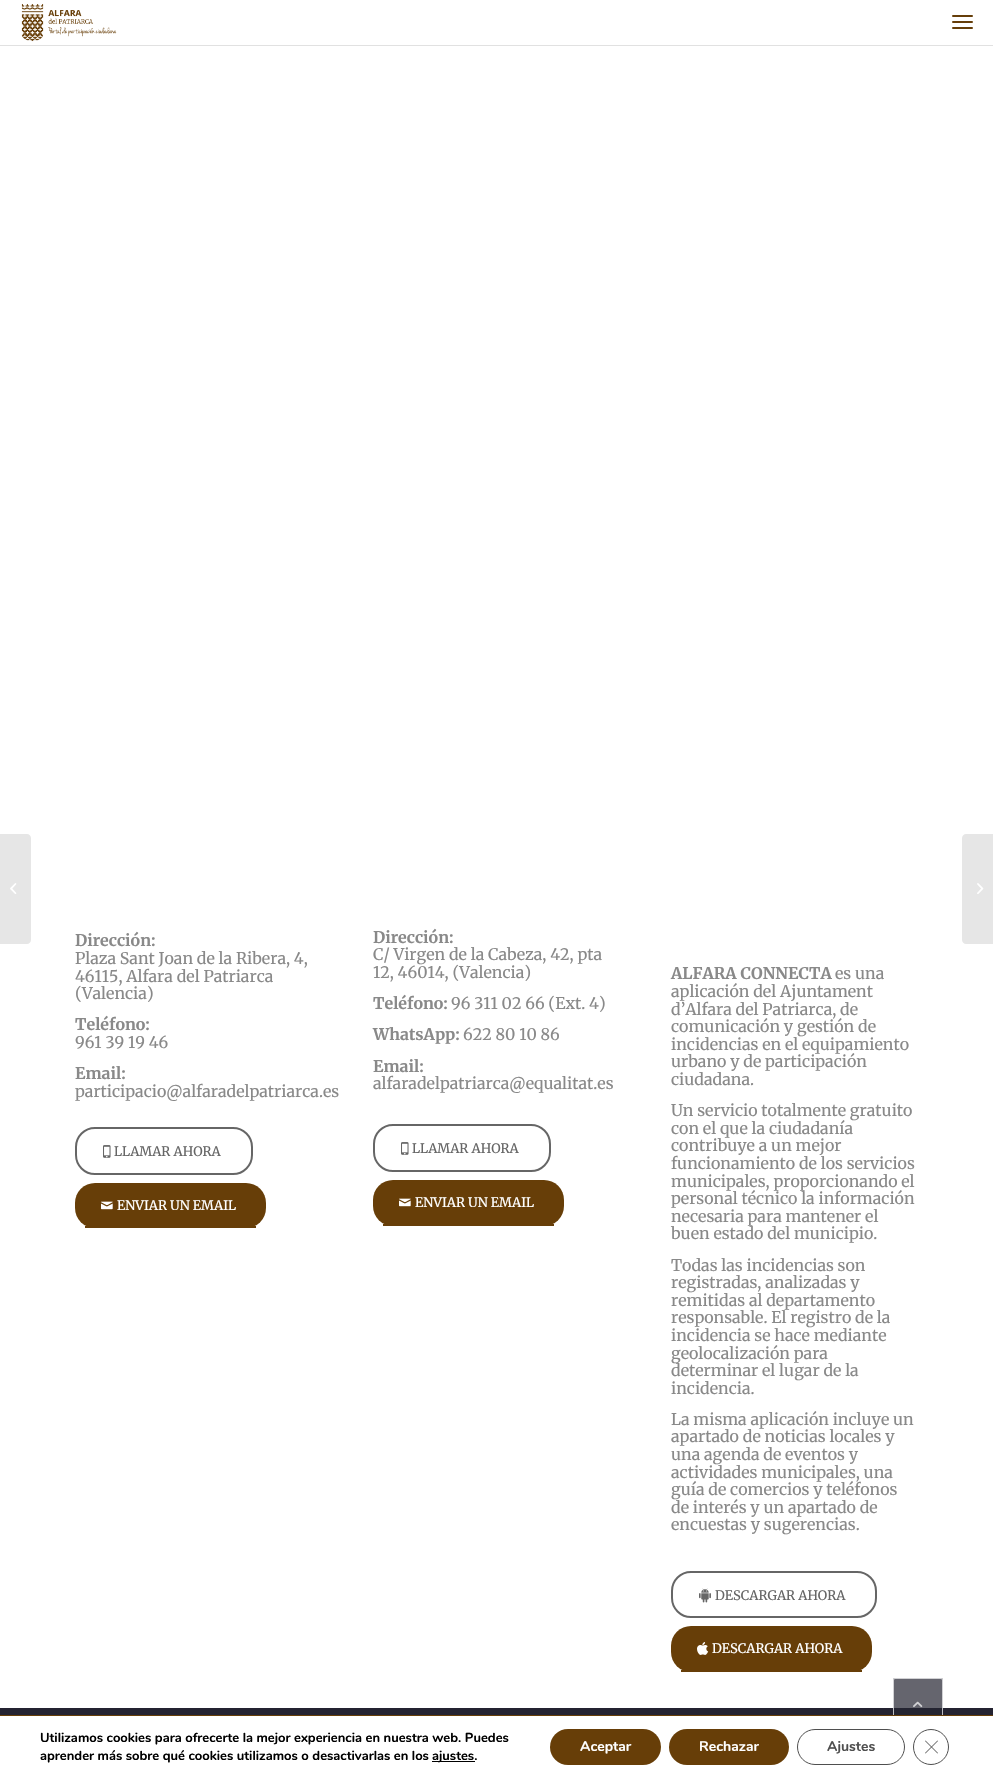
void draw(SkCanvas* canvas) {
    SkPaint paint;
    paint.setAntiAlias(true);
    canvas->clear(0xFFFFFFFF);
    paint.setColor(0xFFE1E1E1);
    canvas->drawRect(SkRect::MakeXYWH(0, 45, 993, 1), paint);
    canvas->drawImageRect(SkImages::DeferredFromEncodedData(SkData::MakeFromFileName("img1.png")), SkRect::MakeXYWH(21, 4, 96, 38), SkSamplingOptions());
    paint.setColor(0xFF663E09);
    canvas->drawRoundRect(SkRect::MakeXYWH(952, 21, 21, 2), 1, 1, paint);
    canvas->drawRoundRect(SkRect::MakeXYWH(952, 15, 21, 2), 1, 1, paint);
    canvas->drawRoundRect(SkRect::MakeXYWH(952, 27, 21, 2), 1, 1, paint);
    paint.setColor(0xFFE6E6E6);
    canvas->drawPath(SkPathBuilder().moveTo(0, 834).lineTo(27, 834).cubicTo(29, 834, 31, 836, 31, 838).lineTo(31, 940).cubicTo(31, 942, 29, 944, 27, 944).lineTo(0, 944).close().detach(), paint);
    canvas->drawImageRect(SkImages::DeferredFromEncodedData(SkData::MakeFromFileName("img2.png")), SkRect::MakeXYWH(10, 883, 7, 11), SkSamplingOptions());
    canvas->drawPath(SkPathBuilder().moveTo(966, 834).lineTo(993, 834).lineTo(993, 944).lineTo(966, 944).cubicTo(964, 944, 962, 942, 962, 940).lineTo(962, 838).cubicTo(962, 836, 964, 834, 966, 834).close().detach(), paint);
    canvas->drawImageRect(SkImages::DeferredFromEncodedData(SkData::MakeFromFileName("img3.png")), SkRect::MakeXYWH(977, 883, 7, 11), SkSamplingOptions());
    SkFont font1(fontMgr->matchFamilyStyle("Merriweather", SkFontStyle::Bold()), 16);
    font1.setSubpixel(true);
    paint.setColor(0xFF898989);
    canvas->drawString("Dirección:", 75, 946, font1, paint);
    SkFont font2(fontMgr->matchFamilyStyle("Merriweather", SkFontStyle::Normal()), 16);
    font2.setSubpixel(true);
    canvas->drawString("Plaza Sant Joan de la Ribera, 4,", 75, 964, font2, paint);
    canvas->drawString("46115, Alfara del Patriarca", 75, 982, font2, paint);
    canvas->drawString("(Valencia)", 75, 999, font2, paint);
    canvas->drawString("Teléfono:", 75, 1030, font1, paint);
    canvas->drawString("961 39 19 46", 75, 1048, font2, paint);
    canvas->drawString("Email:", 75, 1079, font1, paint);
    canvas->drawString("participacio@alfaradelpatriarca.es", 75, 1097, font2, paint);
    paint.setStyle(SkPaint::kStroke_Style);
    paint.setStrokeWidth(2);
    paint.setColor(0xFF666666);
    canvas->drawRoundRect(SkRect::MakeXYWH(76, 1128, 176, 46), 19, 19, paint);
    canvas->drawImageRect(SkImages::DeferredFromEncodedData(SkData::MakeFromFileName("img4.png")), SkRect::MakeXYWH(103, 1145, 8, 13), SkSamplingOptions());
    SkFont font3(fontMgr->matchFamilyStyle("Merriweather", SkFontStyle::Normal()), 13);
    font3.setSubpixel(true);
    paint.setStyle(SkPaint::kFill_Style);
    canvas->drawString("LLAMAR AHORA", 114, 1156, font3, paint);
    paint.setColor(0xFF673E08);
    canvas->drawRoundRect(SkRect::MakeXYWH(75, 1183, 191, 45), 20, 20, paint);
    canvas->drawRect(SkRect::MakeXYWH(85, 1226, 171, 2), paint);
    canvas->drawImageRect(SkImages::DeferredFromEncodedData(SkData::MakeFromFileName("img5.png")), SkRect::MakeXYWH(101, 1201, 12, 9), SkSamplingOptions());
    paint.setColor(0xFFFFFFFF);
    canvas->drawString("ENVIAR UN EMAIL", 117, 1210, font3, paint);
    paint.setColor(0xFF898989);
    canvas->drawString("Dirección:", 373, 943, font1, paint);
    canvas->drawString("C/ Virgen de la Cabeza, 42, pta", 373, 960, font2, paint);
    canvas->drawString("12, 46014, (Valencia)", 373, 978, font2, paint);
    canvas->drawString("Teléfono:", 373, 1009, font1, paint);
    canvas->drawString("96 311 02 66 (Ext. 4)", 451, 1009, font2, paint);
    canvas->drawString("WhatsApp:", 373, 1040, font1, paint);
    canvas->drawString("622 80 10 86", 463, 1040, font2, paint);
    canvas->drawString("Email:", 373, 1072, font1, paint);
    canvas->drawString("alfaradelpatriarca@equalitat.es", 373, 1089, font2, paint);
    paint.setStyle(SkPaint::kStroke_Style);
    paint.setColor(0xFF666666);
    canvas->drawRoundRect(SkRect::MakeXYWH(374, 1125, 176, 46), 19, 19, paint);
    canvas->drawImageRect(SkImages::DeferredFromEncodedData(SkData::MakeFromFileName("img4.png")), SkRect::MakeXYWH(401, 1142, 8, 13), SkSamplingOptions());
    paint.setStyle(SkPaint::kFill_Style);
    canvas->drawString("LLAMAR AHORA", 412, 1153, font3, paint);
    paint.setColor(0xFF673E08);
    canvas->drawRoundRect(SkRect::MakeXYWH(373, 1180, 191, 46), 20, 20, paint);
    canvas->drawRect(SkRect::MakeXYWH(383, 1224, 171, 2), paint);
    canvas->drawImageRect(SkImages::DeferredFromEncodedData(SkData::MakeFromFileName("img5.png")), SkRect::MakeXYWH(399, 1198, 12, 9), SkSamplingOptions());
    paint.setColor(0xFFFFFFFF);
    canvas->drawString("ENVIAR UN EMAIL", 415, 1207, font3, paint);
    paint.setColor(0xFF898989);
    canvas->drawString("ALFARA CONNECTA", 671, 979, font1, paint);
    canvas->drawString("es una", 835, 979, font2, paint);
    canvas->drawString("aplicación del Ajuntament", 671, 997, font2, paint);
    canvas->drawString("d’Alfara del Patriarca, de", 671, 1015, font2, paint);
    canvas->drawString("comunicación y gestión de", 671, 1032, font2, paint);
    canvas->drawString("incidencias en el equipamiento", 671, 1050, font2, paint);
    canvas->drawString("urbano y de participación", 671, 1067, font2, paint);
    canvas->drawString("ciudadana.", 671, 1085, font2, paint);
    canvas->drawString("Un servicio totalmente gratuito", 671, 1116, font2, paint);
    canvas->drawString("con el que la ciudadanía", 671, 1134, font2, paint);
    canvas->drawString("contribuye a un mejor", 671, 1151, font2, paint);
    canvas->drawString("funcionamiento de los servicios", 671, 1169, font2, paint);
    canvas->drawString("municipales, proporcionando el", 671, 1187, font2, paint);
    canvas->drawString("personal técnico la información", 671, 1204, font2, paint);
    canvas->drawString("necesaria para mantener el", 671, 1222, font2, paint);
    canvas->drawString("buen estado del municipio.", 671, 1239, font2, paint);
    canvas->drawString("Todas las incidencias son", 671, 1271, font2, paint);
    canvas->drawString("registradas, analizadas y", 671, 1288, font2, paint);
    canvas->drawString("remitidas al departamento", 671, 1306, font2, paint);
    canvas->drawString("responsable. El registro de la", 671, 1323, font2, paint);
    canvas->drawString("incidencia se hace mediante", 671, 1341, font2, paint);
    canvas->drawString("geolocalización para", 671, 1359, font2, paint);
    canvas->drawString("determinar el lugar de la", 671, 1376, font2, paint);
    canvas->drawString("incidencia.", 671, 1394, font2, paint);
    canvas->drawString("La misma aplicación incluye un", 671, 1425, font2, paint);
    canvas->drawString("apartado de noticias locales y", 671, 1442, font2, paint);
    canvas->drawString("una agenda de eventos y", 671, 1460, font2, paint);
    canvas->drawString("actividades municipales, una", 671, 1478, font2, paint);
    canvas->drawString("guía de comercios y teléfonos", 671, 1495, font2, paint);
    canvas->drawString("de interés y un apartado de", 671, 1513, font2, paint);
    canvas->drawString("encuestas y sugerencias.", 671, 1530, font2, paint);
    paint.setStyle(SkPaint::kStroke_Style);
    paint.setColor(0xFF666666);
    canvas->drawRoundRect(SkRect::MakeXYWH(672, 1572, 204, 45), 19, 19, paint);
    canvas->drawImageRect(SkImages::DeferredFromEncodedData(SkData::MakeFromFileName("img6.png")), SkRect::MakeXYWH(699, 1588, 12, 15), SkSamplingOptions());
    paint.setStyle(SkPaint::kFill_Style);
    canvas->drawString("DESCARGAR AHORA", 715, 1600, font3, paint);
    paint.setColor(0xFF673E08);
    canvas->drawRoundRect(SkRect::MakeXYWH(671, 1626, 201, 46), 20, 20, paint);
    canvas->drawRect(SkRect::MakeXYWH(681, 1670, 181, 2), paint);
    canvas->drawImageRect(SkImages::DeferredFromEncodedData(SkData::MakeFromFileName("img7.png")), SkRect::MakeXYWH(697, 1642, 12, 13), SkSamplingOptions());
    paint.setColor(0xFFFFFFFF);
    canvas->drawString("DESCARGAR AHORA", 712, 1653, font3, paint);
    paint.setColor(0xFF242331);
    canvas->drawRect(SkRect::MakeXYWH(0, 1708, 993, 7), paint);
    paint.setColor(0xB3242331);
    canvas->drawRoundRect(SkRect::MakeXYWH(893, 1678, 50, 50), 2, 2, paint);
    paint.setStyle(SkPaint::kStroke_Style);
    paint.setStrokeWidth(1);
    paint.setColor(0xB3FFFFFF);
    canvas->drawRoundRect(SkRect::MakeXYWH(893.5f, 1678.5f, 49, 49), 1.5f, 1.5f, paint);
    canvas->drawImageRect(SkImages::DeferredFromEncodedData(SkData::MakeFromFileName("img8.png")), SkRect::MakeXYWH(913, 1701, 10, 7), SkSamplingOptions());
    paint.setStyle(SkPaint::kFill_Style);
    paint.setColor(0xFFFFFFFF);
    canvas->drawRect(SkRect::MakeXYWH(893, 1716, 50, 12), paint);
    paint.setColor(0xFF673E08);
    canvas->drawRect(SkRect::MakeXYWH(0, 1715, 993, 1), paint);
    SkFont font4(fontMgr->matchFamilyStyle("Nunito", SkFontStyle::Bold()), 13);
    font4.setSubpixel(true);
    paint.setColor(0xFF000000);
    canvas->drawString("Utilizamos cookies para ofrecerte la mejor experiencia en nuestra web. Puedes", 40, 1742, font4, paint);
    canvas->drawString("aprender más sobre qué cookies utilizamos o desactivarlas en los", 40, 1760, font4, paint);
    canvas->drawRect(SkRect::MakeXYWH(432, 1761, 43, 1), paint);
    canvas->drawString("ajustes.", 432, 1760, font4, paint);
    paint.setColor(0xFF673E08);
    canvas->drawRoundRect(SkRect::MakeXYWH(550, 1729, 111, 36), 18, 18, paint);
    SkFont font5(fontMgr->matchFamilyStyle("Nunito", SkFontStyle::Bold()), 14);
    font5.setSubpixel(true);
    paint.setColor(0xFFFFFFFF);
    canvas->drawString("Aceptar", 580, 1751, font5, paint);
    paint.setColor(0xFF673E08);
    canvas->drawRoundRect(SkRect::MakeXYWH(669, 1729, 120, 36), 18, 18, paint);
    paint.setColor(0xFFFFFFFF);
    canvas->drawString("Rechazar", 699, 1751, font5, paint);
    paint.setStyle(SkPaint::kStroke_Style);
    paint.setColor(0xFF4F4F4F);
    canvas->drawRoundRect(SkRect::MakeXYWH(797.5f, 1729.5f, 107, 35), 17.5f, 17.5f, paint);
    paint.setStyle(SkPaint::kFill_Style);
    canvas->drawString("Ajustes", 827, 1751, font5, paint);
    paint.setStyle(SkPaint::kStroke_Style);
    canvas->drawCircle(931, 1747, 17.5f, paint);
    paint.setStyle(SkPaint::kFill_Style);
    canvas->drawPath(SkPathBuilder().moveTo(937.5f, 1740.5f).lineTo(938, 1741).lineTo(925.5f, 1753.5f).lineTo(925, 1753).close().detach(), paint);
    canvas->drawPath(SkPathBuilder().moveTo(925, 1741).lineTo(925.5f, 1740.5f).lineTo(938, 1753).lineTo(937.5f, 1753.5f).close().detach(), paint);
}
